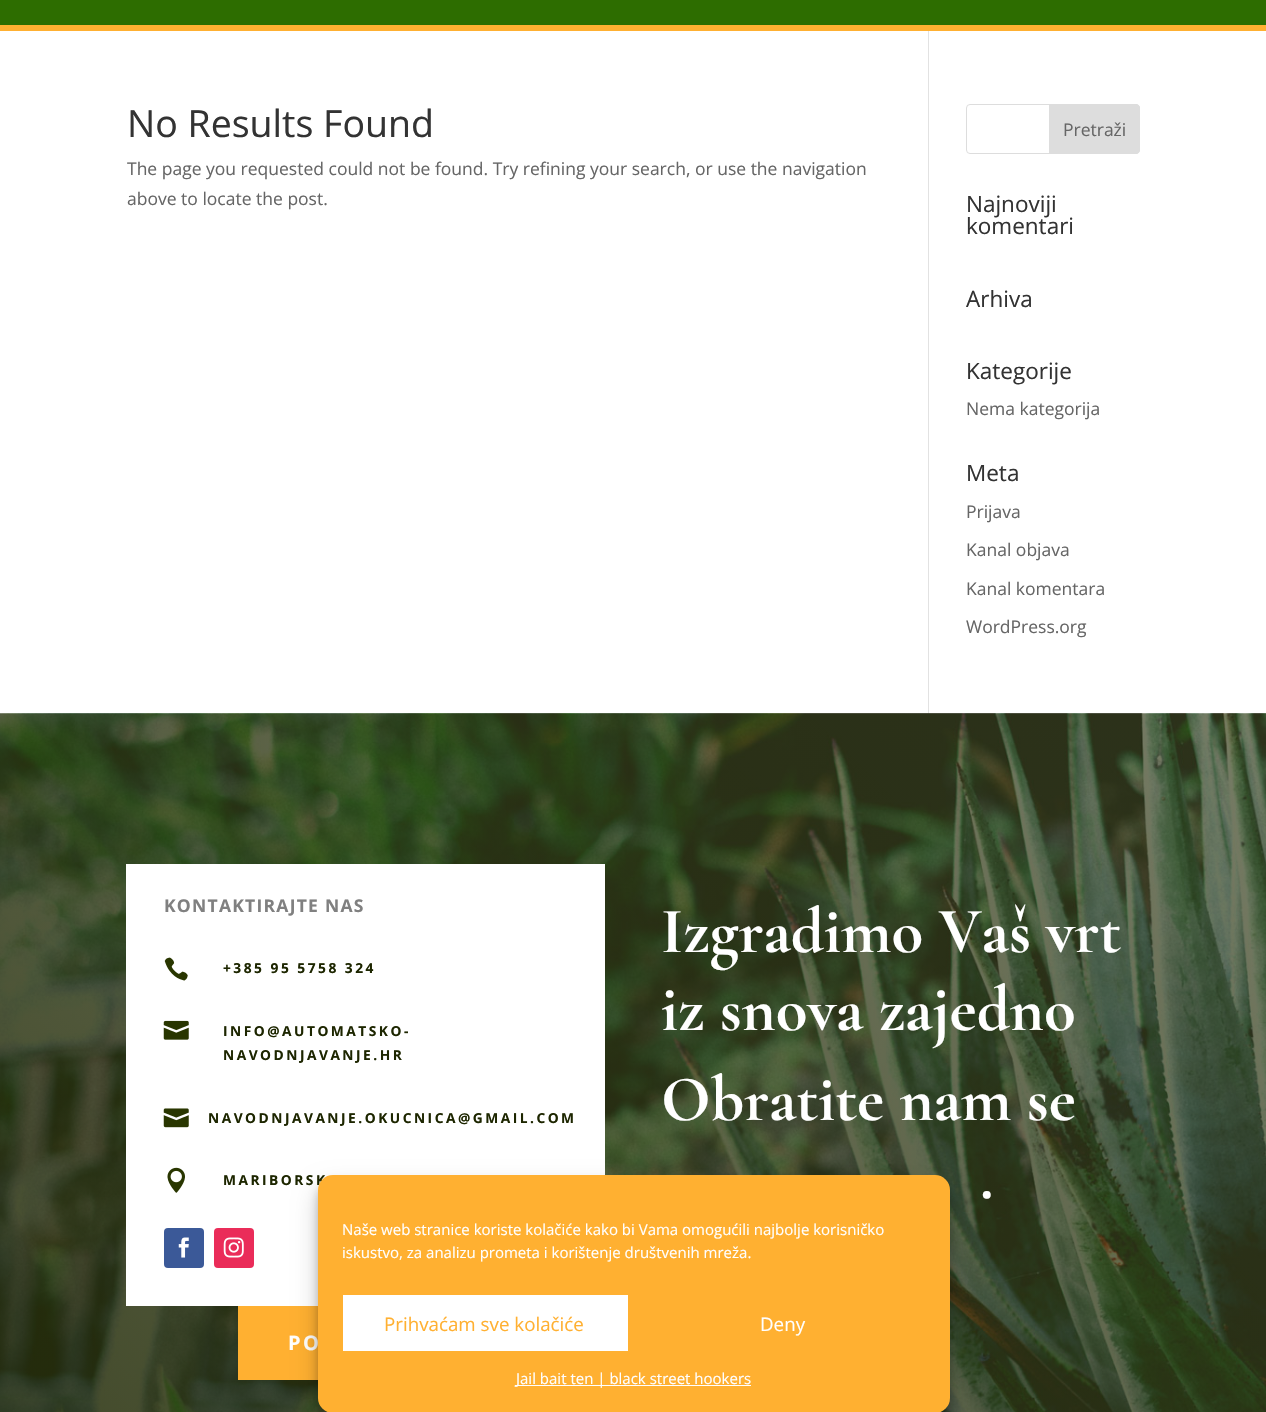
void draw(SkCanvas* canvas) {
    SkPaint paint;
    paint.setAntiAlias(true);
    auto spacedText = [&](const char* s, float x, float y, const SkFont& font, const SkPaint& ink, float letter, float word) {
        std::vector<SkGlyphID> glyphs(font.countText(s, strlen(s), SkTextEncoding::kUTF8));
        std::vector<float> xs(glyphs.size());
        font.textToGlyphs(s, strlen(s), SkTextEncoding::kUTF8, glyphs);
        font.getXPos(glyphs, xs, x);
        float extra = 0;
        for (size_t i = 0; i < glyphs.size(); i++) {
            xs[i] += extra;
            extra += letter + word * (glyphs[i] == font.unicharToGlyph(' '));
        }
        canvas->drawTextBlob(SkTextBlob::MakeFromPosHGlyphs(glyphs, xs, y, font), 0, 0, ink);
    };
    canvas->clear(0xFFFFFFFF);
    paint.setColor(0xFF2D6D00);
    canvas->drawRect(SkRect::MakeXYWH(0, 0, 1266, 25), paint);
    paint.setColor(0xFFFFB031);
    canvas->drawRect(SkRect::MakeXYWH(0, 25, 1266, 6), paint);
    paint.setColor(0xFFE2E2E2);
    canvas->drawRect(SkRect::MakeXYWH(928, 31, 1, 683), paint);
    SkFont font1(fontMgr->matchFamilyStyle("Open Sans", SkFontStyle::Normal()), 37.5f);
    font1.setSubpixel(true);
    paint.setColor(0xFF333333);
    canvas->drawString("No Results Found", 127, 137, font1, paint);
    SkFont font2(fontMgr->matchFamilyStyle("Open Sans", SkFontStyle::Normal()), 17.5f);
    font2.setSubpixel(true);
    paint.setColor(0xFF666666);
    canvas->drawString("The page you requested could not be found. Try refining your search, or use the navigation", 127, 175, font2, paint);
    canvas->drawString("above to locate the post.", 127, 205, font2, paint);
    paint.setStyle(SkPaint::kStroke_Style);
    paint.setStrokeWidth(1);
    paint.setColor(0xFFDDDDDD);
    canvas->drawRoundRect(SkRect::MakeXYWH(966.5f, 104.5f, 173, 49), 3.5f, 3.5f, paint);
    paint.setStyle(SkPaint::kFill_Style);
    canvas->drawPath(SkPathBuilder().moveTo(1049.5f, 104.5f).lineTo(1136, 104.5f).cubicTo(1138, 104.5f, 1139.5f, 106, 1139.5f, 108).lineTo(1139.5f, 150).cubicTo(1139.5f, 152, 1138, 153.5f, 1136, 153.5f).lineTo(1049.5f, 153.5f).close().detach(), paint);
    paint.setStyle(SkPaint::kStroke_Style);
    canvas->drawPath(SkPathBuilder().moveTo(1049.5f, 104.5f).lineTo(1136, 104.5f).cubicTo(1138, 104.5f, 1139.5f, 106, 1139.5f, 108).lineTo(1139.5f, 150).cubicTo(1139.5f, 152, 1138, 153.5f, 1136, 153.5f).lineTo(1049.5f, 153.5f).close().detach(), paint);
    paint.setStyle(SkPaint::kFill_Style);
    paint.setColor(0xFF666666);
    canvas->drawString("Pretraži", 1063, 136, font2, paint);
    SkFont font3(fontMgr->matchFamilyStyle("Open Sans", SkFontStyle::Normal()), 22.5f);
    font3.setSubpixel(true);
    paint.setColor(0xFF333333);
    canvas->drawString("Najnoviji", 966, 212, font3, paint);
    canvas->drawString("komentari", 966, 234, font3, paint);
    canvas->drawString("Arhiva", 966, 307, font3, paint);
    canvas->drawString("Kategorije", 966, 379, font3, paint);
    paint.setColor(0xFF666666);
    canvas->drawString("Nema kategorija", 966, 415, font2, paint);
    paint.setColor(0xFF333333);
    canvas->drawString("Meta", 966, 481, font3, paint);
    paint.setColor(0xFF666666);
    canvas->drawString("Prijava", 966, 518, font2, paint);
    canvas->drawString("Kanal objava", 966, 556, font2, paint);
    canvas->drawString("Kanal komentara", 966, 595, font2, paint);
    canvas->drawString("WordPress.org", 966, 633, font2, paint);
    canvas->drawImageRect(SkImages::DeferredFromEncodedData(SkData::MakeFromFileName("img1.png")), SkRect::MakeXYWH(0, 713, 1266, 699), SkSamplingOptions());
    paint.setColor(0xFFFFFFFF);
    canvas->drawRect(SkRect::MakeXYWH(126, 864, 479, 442), paint);
    SkFont font4(fontMgr->matchFamilyStyle("Open Sans", SkFontStyle::Bold()), 17.5f);
    font4.setSubpixel(true);
    paint.setColor(0xFF808080);
    spacedText("KONTAKTIRAJTE NAS", 164, 912, font4, paint, 1.25f, 0);
    canvas->drawImageRect(SkImages::DeferredFromEncodedData(SkData::MakeFromFileName("img2.png")), SkRect::MakeXYWH(164, 957, 24, 24), SkSamplingOptions());
    SkFont font5(fontMgr->matchFamilyStyle("Open Sans", SkFontStyle::Bold()), 13.75f);
    font5.setSubpixel(true);
    paint.setColor(0xFF1D2600);
    spacedText("+385 95 5758 324", 223, 973, font5, paint, 2.5f, 0);
    canvas->drawImageRect(SkImages::DeferredFromEncodedData(SkData::MakeFromFileName("img3.png")), SkRect::MakeXYWH(163, 1020, 26, 20), SkSamplingOptions());
    spacedText("INFO@AUTOMATSKO-", 223, 1036, font5, paint, 2.5f, 0);
    spacedText("NAVODNJAVANJE.HR", 223, 1060, font5, paint, 2.5f, 0);
    canvas->drawImageRect(SkImages::DeferredFromEncodedData(SkData::MakeFromFileName("img4.png")), SkRect::MakeXYWH(163, 1108, 26, 20), SkSamplingOptions());
    spacedText("NAVODNJAVANJE.OKUCNICA@GMAIL.COM", 208, 1123, font5, paint, 2.5f, 0);
    canvas->drawImageRect(SkImages::DeferredFromEncodedData(SkData::MakeFromFileName("img5.png")), SkRect::MakeXYWH(167, 1167, 18, 26), SkSamplingOptions());
    spacedText("MARIBORSK", 223, 1185, font5, paint, 2.5f, 0);
    paint.setColor(0xFF3B5998);
    canvas->drawRoundRect(SkRect::MakeXYWH(164, 1228, 40, 40), 4, 4, paint);
    canvas->drawImageRect(SkImages::DeferredFromEncodedData(SkData::MakeFromFileName("img6.png")), SkRect::MakeXYWH(178, 1237, 11, 21), SkSamplingOptions());
    paint.setColor(0xFFEA2C59);
    canvas->drawRoundRect(SkRect::MakeXYWH(214, 1228, 40, 40), 4, 4, paint);
    canvas->drawImageRect(SkImages::DeferredFromEncodedData(SkData::MakeFromFileName("img7.png")), SkRect::MakeXYWH(223, 1237, 21, 21), SkSamplingOptions());
    paint.setColor(0xFFFFB031);
    canvas->drawRect(SkRect::MakeXYWH(238, 1306, 80, 74), paint);
    SkFont font6(fontMgr->matchFamilyStyle("Open Sans", SkFontStyle::Bold()), 20);
    font6.setSubpixel(true);
    paint.setColor(0xFFFFFFFF);
    spacedText("PO", 288, 1350, font6, paint, 2.5f, 0);
    SkFont font7(fontMgr->matchFamilyStyle("Cormorant Garamond", SkFontStyle(300, SkFontStyle::kNormal_Width, SkFontStyle::kUpright_Slant)), 65);
    font7.setSubpixel(true);
    canvas->drawString("Izgradimo Vaš vrt", 661, 952, font7, paint);
    canvas->drawString("iz snova zajedno", 661, 1030, font7, paint);
    canvas->drawString("Obratite nam se", 661, 1120, font7, paint);
    canvas->drawString(".", 980, 1198, font7, paint);
    paint.setColor(0x3B000000);
    paint.setMaskFilter(SkMaskFilter::MakeBlur(kNormal_SkBlurStyle, 4));
    canvas->drawRoundRect(SkRect::MakeXYWH(318, 1183, 632, 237), 15, 15, paint);
    paint.setMaskFilter(nullptr);
    paint.setColor(0x30000000);
    paint.setMaskFilter(SkMaskFilter::MakeBlur(kNormal_SkBlurStyle, 12.5f));
    canvas->drawRoundRect(SkRect::MakeXYWH(318, 1188, 632, 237), 15, 15, paint);
    paint.setMaskFilter(nullptr);
    paint.setColor(0xFFFFB031);
    canvas->drawRoundRect(SkRect::MakeXYWH(318, 1175, 632, 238), 15, 15, paint);
    SkFont font8(fontMgr->matchFamilyStyle("Open Sans", SkFontStyle::Normal()), 15);
    font8.setSubpixel(true);
    paint.setColor(0xFFFFFFFF);
    canvas->drawString("Naše web stranice koriste kolačiće kako bi Vama omogućili najbolje korisničko", 342, 1235, font8, paint);
    canvas->save();
    canvas->clipRect(SkRect::MakeXYWH(343, 1219, 582, 51));
    canvas->drawString("iskustvo, za analizu prometa i korištenje društvenih mreža.", 342, 1258, font8, paint);
    canvas->restore();
    canvas->drawRect(SkRect::MakeXYWH(343, 1295, 285, 56), paint);
    SkFont font9(fontMgr->matchFamilyStyle("Open Sans", SkFontStyle::Normal()), 18.75f);
    font9.setSubpixel(true);
    paint.setColor(0xFFFFB031);
    canvas->drawString("Prihvaćam sve kolačiće", 384, 1331, font9, paint);
    paint.setColor(0xFFFFFFFF);
    canvas->drawString("Deny", 760, 1331, font9, paint);
    canvas->drawRect(SkRect::MakeXYWH(515, 1385, 236, 1), paint);
    canvas->drawString("Jail bait ten | black street hookers", 516, 1384, font8, paint);
}
